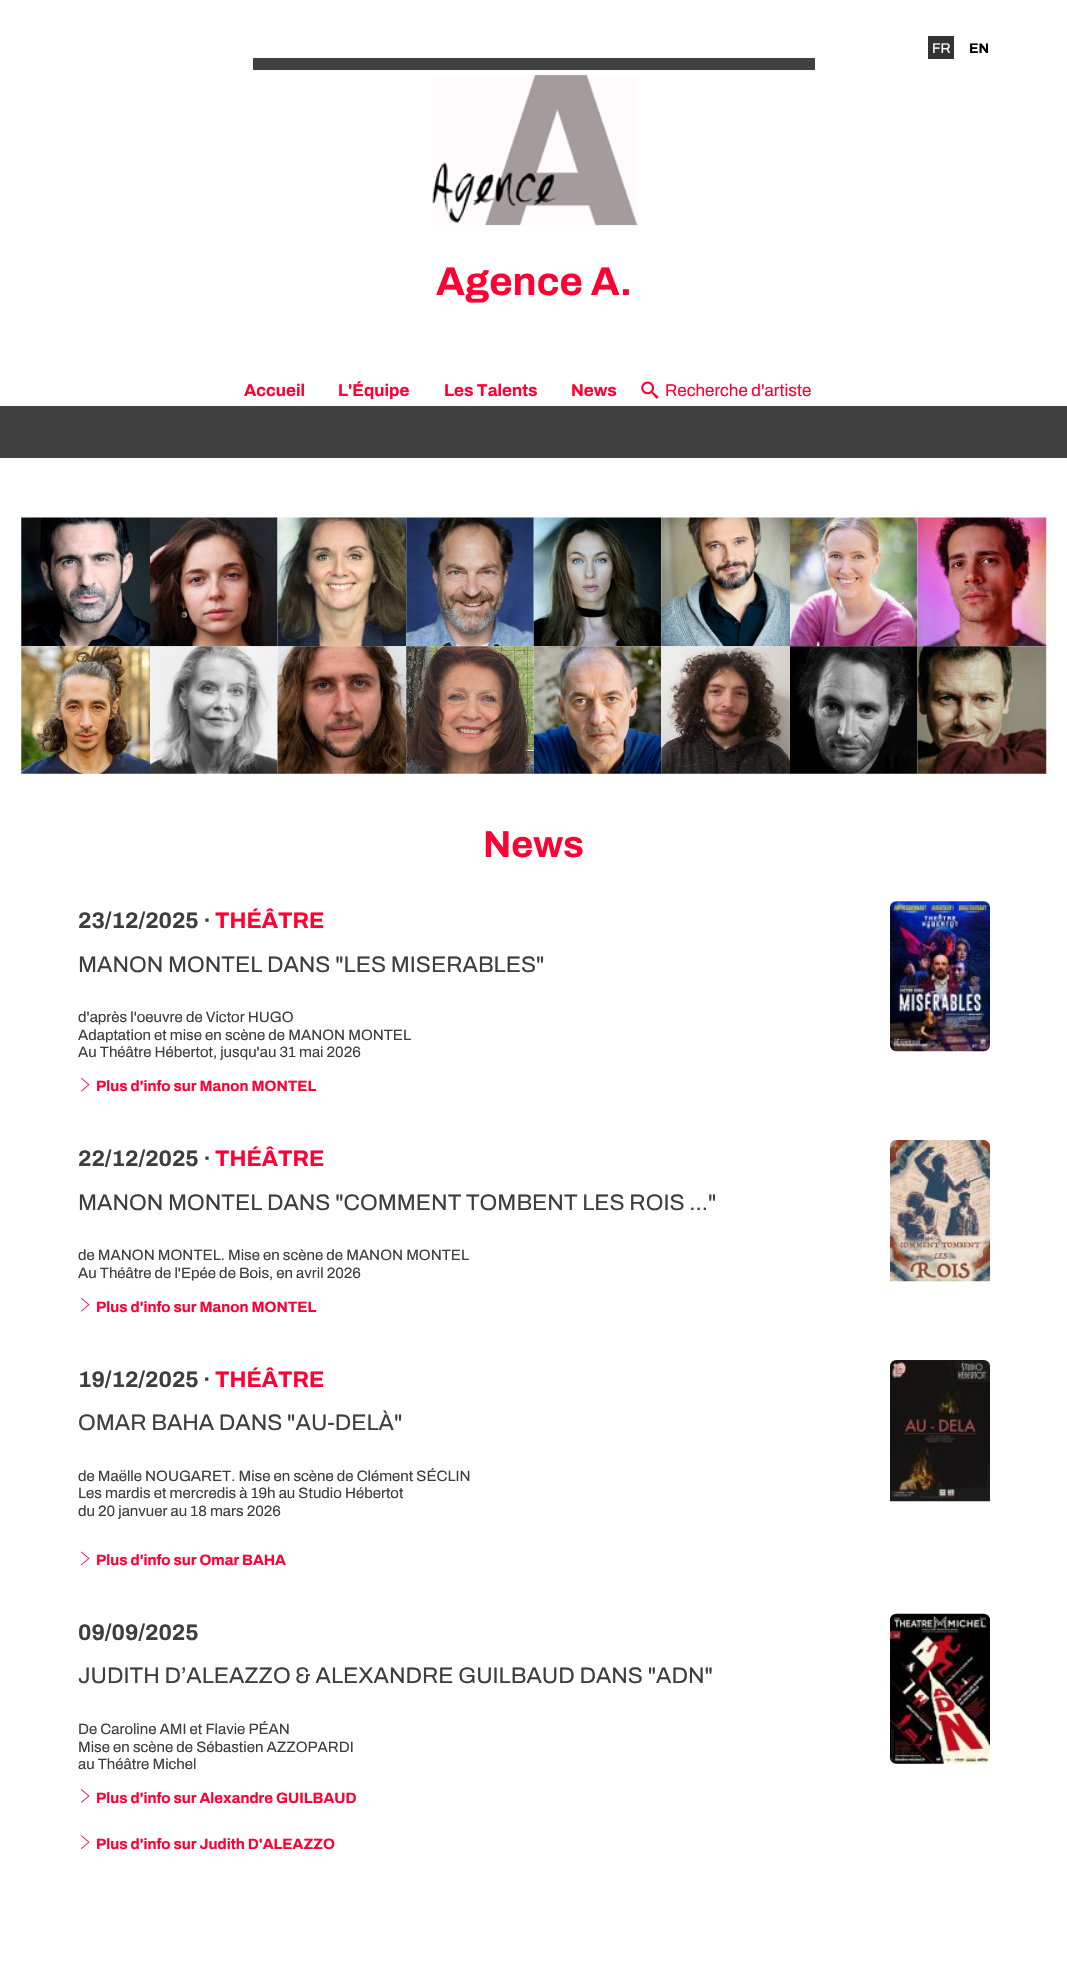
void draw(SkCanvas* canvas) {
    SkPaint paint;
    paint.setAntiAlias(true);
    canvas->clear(0xFFFFFFFF);
    paint.setColor(0xFF333333);
    canvas->drawRect(SkRect::MakeXYWH(928, 36, 26, 23), paint);
    SkFont font1(fontMgr->matchFamilyStyle("Archivo", SkFontStyle::Normal()), 14);
    font1.setSubpixel(true);
    paint.setColor(0xFFFFFFFF);
    canvas->drawString("FR", 932, 53, font1, paint);
    SkFont font2(fontMgr->matchFamilyStyle("Archivo", SkFontStyle::Bold()), 14);
    font2.setSubpixel(true);
    paint.setColor(0xFF000000);
    canvas->drawString("EN", 969, 53, font2, paint);
    paint.setColor(0xFF404040);
    canvas->drawRect(SkRect::MakeXYWH(253, 58, 562, 12), paint);
    canvas->drawImageRect(SkImages::DeferredFromEncodedData(SkData::MakeFromFileName("img1.png")), SkRect::MakeXYWH(432, 74, 206, 152), SkSamplingOptions());
    SkFont font3(fontMgr->matchFamilyStyle("Archivo", SkFontStyle::Bold()), 40);
    font3.setSubpixel(true);
    paint.setColor(0xFFFF0033);
    canvas->drawString("Agence A.", 436, 295, font3, paint);
    SkFont font4(fontMgr->matchFamilyStyle("Archivo", SkFontStyle::Bold()), 17);
    font4.setSubpixel(true);
    canvas->drawString("Accueil", 244, 396, font4, paint);
    canvas->drawString("L'Équipe", 338, 396, font4, paint);
    canvas->drawString("Les Talents", 444, 396, font4, paint);
    paint.setColor(0xFF404040);
    canvas->drawRect(SkRect::MakeXYWH(0, 406, 1067, 52), paint);
    paint.setColor(0xFFFF0033);
    canvas->drawString("News", 571, 396, font4, paint);
    canvas->drawImageRect(SkImages::DeferredFromEncodedData(SkData::MakeFromFileName("img2.png")), SkRect::MakeXYWH(641, 381, 18, 18), SkSamplingOptions());
    SkFont font5(fontMgr->matchFamilyStyle("Archivo", SkFontStyle::Normal()), 17);
    font5.setSubpixel(true);
    canvas->drawString("Recherche d'artiste", 665, 396, font5, paint);
    canvas->drawImageRect(SkImages::DeferredFromEncodedData(SkData::MakeFromFileName("img3.png")), SkRect::MakeXYWH(21, 517, 129, 130), SkSamplingOptions());
    canvas->drawImageRect(SkImages::DeferredFromEncodedData(SkData::MakeFromFileName("img4.png")), SkRect::MakeXYWH(150, 517, 128, 130), SkSamplingOptions());
    canvas->drawImageRect(SkImages::DeferredFromEncodedData(SkData::MakeFromFileName("img5.png")), SkRect::MakeXYWH(277, 517, 130, 130), SkSamplingOptions());
    canvas->drawImageRect(SkImages::DeferredFromEncodedData(SkData::MakeFromFileName("img6.png")), SkRect::MakeXYWH(406, 517, 128, 130), SkSamplingOptions());
    canvas->drawImageRect(SkImages::DeferredFromEncodedData(SkData::MakeFromFileName("img7.png")), SkRect::MakeXYWH(533, 517, 129, 130), SkSamplingOptions());
    canvas->drawImageRect(SkImages::DeferredFromEncodedData(SkData::MakeFromFileName("img8.png")), SkRect::MakeXYWH(661, 517, 129, 130), SkSamplingOptions());
    canvas->drawImageRect(SkImages::DeferredFromEncodedData(SkData::MakeFromFileName("img9.png")), SkRect::MakeXYWH(790, 517, 128, 130), SkSamplingOptions());
    canvas->drawImageRect(SkImages::DeferredFromEncodedData(SkData::MakeFromFileName("img10.png")), SkRect::MakeXYWH(917, 517, 130, 130), SkSamplingOptions());
    canvas->drawImageRect(SkImages::DeferredFromEncodedData(SkData::MakeFromFileName("img11.png")), SkRect::MakeXYWH(21, 646, 129, 128), SkSamplingOptions());
    canvas->drawImageRect(SkImages::DeferredFromEncodedData(SkData::MakeFromFileName("img12.png")), SkRect::MakeXYWH(150, 646, 128, 128), SkSamplingOptions());
    canvas->drawImageRect(SkImages::DeferredFromEncodedData(SkData::MakeFromFileName("img13.png")), SkRect::MakeXYWH(277, 646, 130, 128), SkSamplingOptions());
    canvas->drawImageRect(SkImages::DeferredFromEncodedData(SkData::MakeFromFileName("img14.png")), SkRect::MakeXYWH(406, 646, 128, 128), SkSamplingOptions());
    canvas->drawImageRect(SkImages::DeferredFromEncodedData(SkData::MakeFromFileName("img15.png")), SkRect::MakeXYWH(533, 646, 129, 128), SkSamplingOptions());
    canvas->drawImageRect(SkImages::DeferredFromEncodedData(SkData::MakeFromFileName("img16.png")), SkRect::MakeXYWH(661, 646, 129, 128), SkSamplingOptions());
    canvas->drawImageRect(SkImages::DeferredFromEncodedData(SkData::MakeFromFileName("img17.png")), SkRect::MakeXYWH(790, 646, 128, 128), SkSamplingOptions());
    canvas->drawImageRect(SkImages::DeferredFromEncodedData(SkData::MakeFromFileName("img18.png")), SkRect::MakeXYWH(917, 646, 130, 128), SkSamplingOptions());
    SkFont font6(fontMgr->matchFamilyStyle("Archivo", SkFontStyle::Bold()), 37.5f);
    font6.setSubpixel(true);
    canvas->drawString("News", 483, 857, font6, paint);
    SkFont font7(fontMgr->matchFamilyStyle("Archivo", SkFontStyle::Bold()), 22.5f);
    font7.setSubpixel(true);
    paint.setColor(0xFF3E3E3E);
    canvas->drawString("23/12/2025 ·", 78, 928, font7, paint);
    paint.setColor(0xFFFF0033);
    canvas->drawString("THÉÂTRE", 215, 928, font7, paint);
    SkFont font8(fontMgr->matchFamilyStyle("Archivo", SkFontStyle::Normal()), 22.5f);
    font8.setSubpixel(true);
    paint.setColor(0xFF3E3E3E);
    canvas->drawString("MANON MONTEL DANS \"LES MISERABLES\"", 78, 972, font8, paint);
    SkFont font9(fontMgr->matchFamilyStyle("Archivo", SkFontStyle::Normal()), 15);
    font9.setSubpixel(true);
    canvas->drawString("d'après l'oeuvre de Victor HUGO", 78, 1022, font9, paint);
    canvas->drawString("Adaptation et mise en scène de MANON MONTEL", 78, 1040, font9, paint);
    canvas->drawString("Au Théâtre Hébertot, jusqu'au 31 mai 2026", 78, 1057, font9, paint);
    canvas->drawImageRect(SkImages::DeferredFromEncodedData(SkData::MakeFromFileName("img19.png")), SkRect::MakeXYWH(81, 1077, 9, 15), SkSamplingOptions());
    SkFont font10(fontMgr->matchFamilyStyle("Archivo", SkFontStyle::Bold()), 15);
    font10.setSubpixel(true);
    paint.setColor(0xFFFF0033);
    canvas->drawString("Plus d'info sur Manon MONTEL", 96, 1091, font10, paint);
    canvas->drawImageRect(SkImages::DeferredFromEncodedData(SkData::MakeFromFileName("img20.png")), SkRect::MakeXYWH(889, 901, 101, 151), SkSamplingOptions());
    paint.setColor(0xFF3E3E3E);
    canvas->drawString("22/12/2025 ·", 78, 1166, font7, paint);
    paint.setColor(0xFFFF0033);
    canvas->drawString("THÉÂTRE", 215, 1166, font7, paint);
    paint.setColor(0xFF3E3E3E);
    canvas->drawString("MANON MONTEL DANS \"COMMENT TOMBENT LES ROIS ...\"", 78, 1210, font8, paint);
    canvas->drawString("de MANON MONTEL. Mise en scène de MANON MONTEL", 78, 1260, font9, paint);
    canvas->drawString("Au Théâtre de l'Epée de Bois, en avril 2026", 78, 1278, font9, paint);
    canvas->drawImageRect(SkImages::DeferredFromEncodedData(SkData::MakeFromFileName("img19.png")), SkRect::MakeXYWH(81, 1297, 9, 15), SkSamplingOptions());
    paint.setColor(0xFFFF0033);
    canvas->drawString("Plus d'info sur Manon MONTEL", 96, 1312, font10, paint);
    canvas->drawImageRect(SkImages::DeferredFromEncodedData(SkData::MakeFromFileName("img21.png")), SkRect::MakeXYWH(890, 1140, 100, 142), SkSamplingOptions());
    paint.setColor(0xFF3E3E3E);
    canvas->drawString("19/12/2025 ·", 78, 1387, font7, paint);
    paint.setColor(0xFFFF0033);
    canvas->drawString("THÉÂTRE", 215, 1387, font7, paint);
    paint.setColor(0xFF3E3E3E);
    canvas->drawString("OMAR BAHA DANS \"AU-DELÀ\"", 78, 1430, font8, paint);
    canvas->drawString("de Maëlle NOUGARET. Mise en scène de Clément SÉCLIN", 78, 1481, font9, paint);
    canvas->drawString("Les mardis et mercredis à 19h au Studio Hébertot", 78, 1498, font9, paint);
    canvas->drawString("du 20 janvuer au 18 mars 2026", 78, 1516, font9, paint);
    canvas->drawImageRect(SkImages::DeferredFromEncodedData(SkData::MakeFromFileName("img22.png")), SkRect::MakeXYWH(81, 1551, 9, 15), SkSamplingOptions());
    paint.setColor(0xFFFF0033);
    canvas->drawString("Plus d'info sur Omar BAHA", 96, 1565, font10, paint);
    canvas->drawImageRect(SkImages::DeferredFromEncodedData(SkData::MakeFromFileName("img23.png")), SkRect::MakeXYWH(890, 1360, 100, 142), SkSamplingOptions());
    paint.setColor(0xFF3E3E3E);
    canvas->drawString("09/09/2025", 78, 1640, font7, paint);
    canvas->drawString("JUDITH D’ALEAZZO & ALEXANDRE GUILBAUD DANS \"ADN\"", 78, 1683, font8, paint);
    canvas->drawString("De Caroline AMI et Flavie PÉAN", 78, 1734, font9, paint);
    canvas->drawString("Mise en scène de Sébastien AZZOPARDI", 78, 1752, font9, paint);
    canvas->drawString("au Théâtre Michel", 78, 1769, font9, paint);
    canvas->drawImageRect(SkImages::DeferredFromEncodedData(SkData::MakeFromFileName("img24.png")), SkRect::MakeXYWH(81, 1789, 9, 14), SkSamplingOptions());
    paint.setColor(0xFFFF0033);
    canvas->drawString("Plus d'info sur Alexandre GUILBAUD", 96, 1803, font10, paint);
    canvas->drawImageRect(SkImages::DeferredFromEncodedData(SkData::MakeFromFileName("img25.png")), SkRect::MakeXYWH(81, 1835, 9, 14), SkSamplingOptions());
    canvas->drawString("Plus d'info sur Judith D'ALEAZZO", 96, 1849, font10, paint);
    canvas->drawImageRect(SkImages::DeferredFromEncodedData(SkData::MakeFromFileName("img26.png")), SkRect::MakeXYWH(890, 1613, 100, 151), SkSamplingOptions());
}
